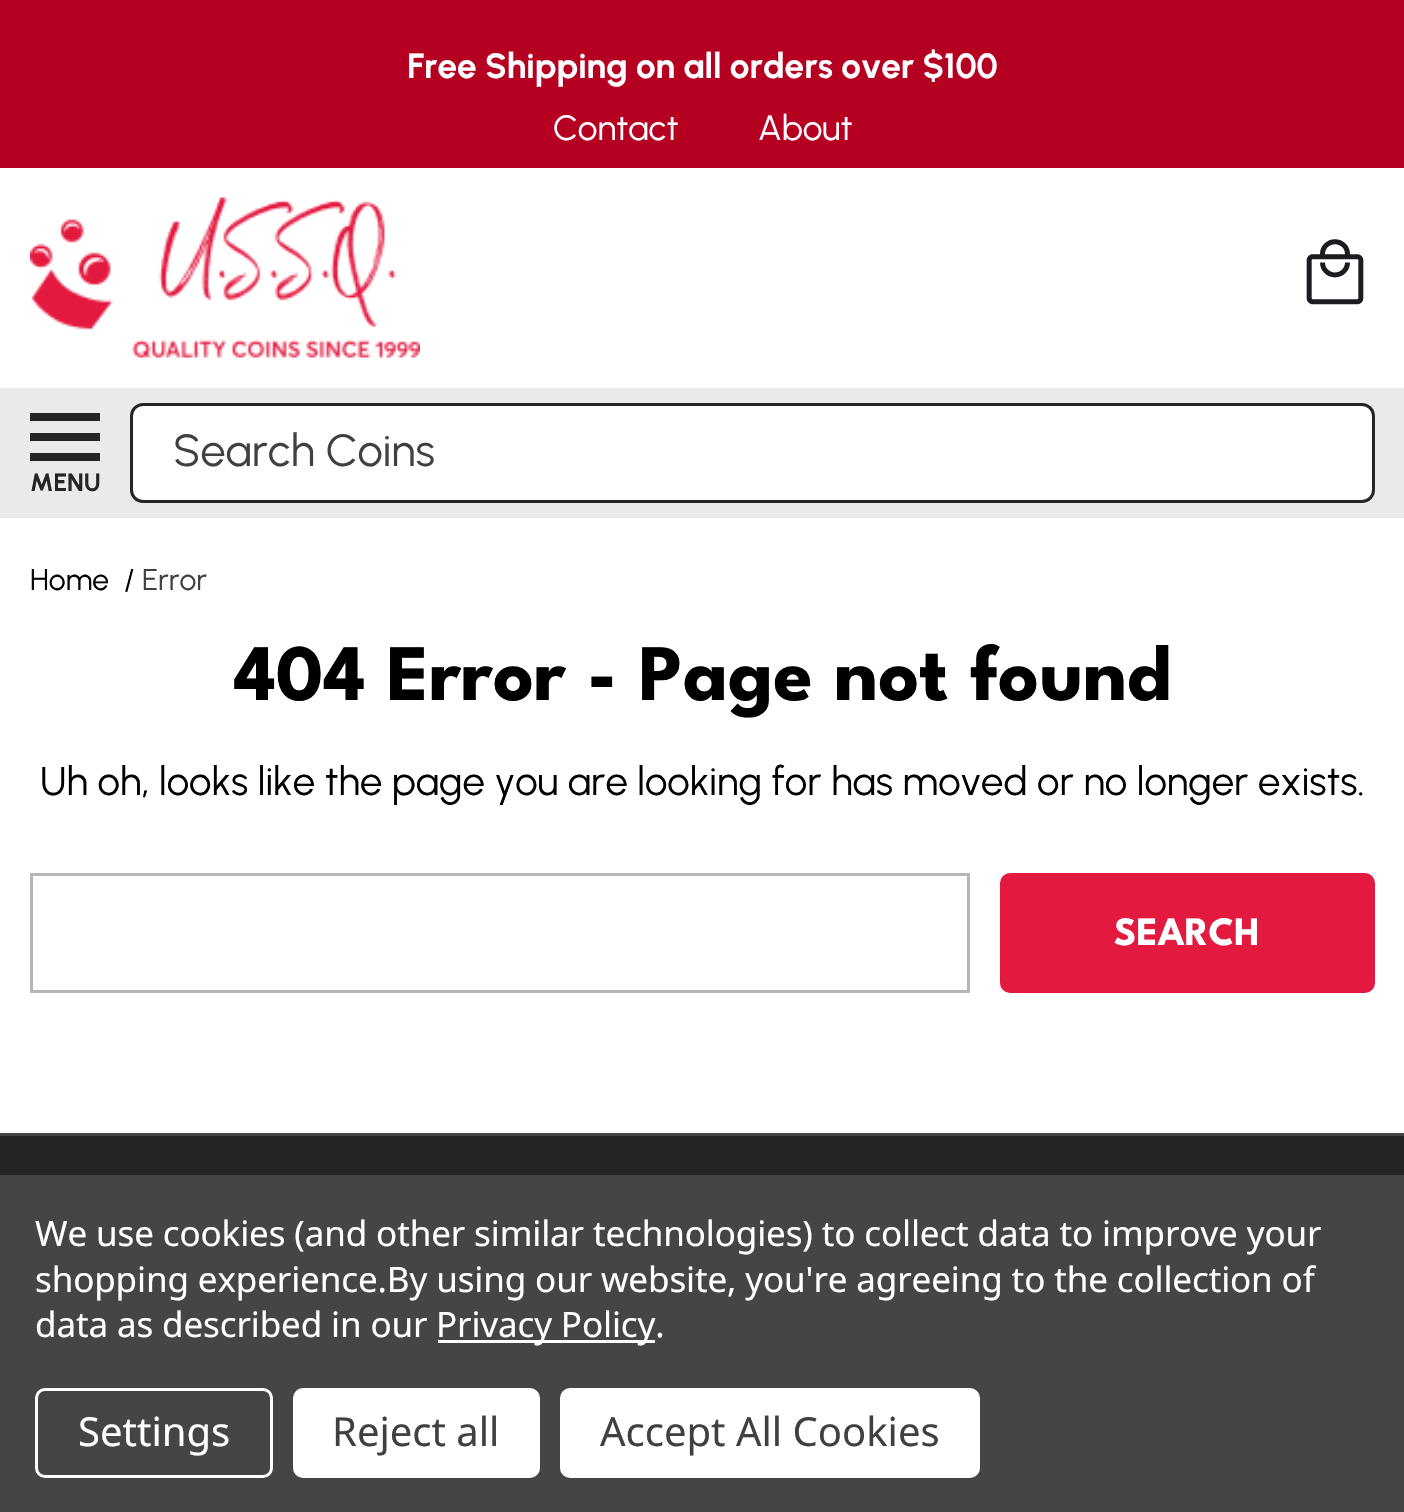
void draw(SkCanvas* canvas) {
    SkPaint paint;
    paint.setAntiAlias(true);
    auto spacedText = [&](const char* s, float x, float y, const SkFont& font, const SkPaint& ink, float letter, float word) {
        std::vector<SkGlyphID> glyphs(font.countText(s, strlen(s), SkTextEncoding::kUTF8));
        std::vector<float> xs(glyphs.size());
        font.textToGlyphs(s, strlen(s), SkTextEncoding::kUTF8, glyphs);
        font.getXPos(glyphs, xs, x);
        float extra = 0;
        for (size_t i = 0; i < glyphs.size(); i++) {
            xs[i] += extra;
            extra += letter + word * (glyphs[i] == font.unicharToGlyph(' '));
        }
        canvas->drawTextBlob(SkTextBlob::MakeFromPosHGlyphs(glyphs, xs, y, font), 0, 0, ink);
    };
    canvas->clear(0xFFFFFFFF);
    paint.setColor(0xFFB50022);
    canvas->drawRect(SkRect::MakeXYWH(0, 0, 1404, 168), paint);
    SkFont font1(fontMgr->matchFamilyStyle("Urbanist", SkFontStyle::Bold()), 35);
    font1.setSubpixel(true);
    paint.setColor(0xFFFFFFFF);
    canvas->drawString("Free Shipping on all orders over $100", 407, 78, font1, paint);
    SkFont font2(fontMgr->matchFamilyStyle("Urbanist", SkFontStyle::Normal()), 35);
    font2.setSubpixel(true);
    canvas->drawString("Contact", 553, 140, font2, paint);
    canvas->drawString("About", 758, 140, font2, paint);
    canvas->drawImageRect(SkImages::DeferredFromEncodedData(SkData::MakeFromFileName("img1.png")), SkRect::MakeXYWH(30, 197, 390, 161), SkSamplingOptions());
    canvas->drawImageRect(SkImages::DeferredFromEncodedData(SkData::MakeFromFileName("img2.png")), SkRect::MakeXYWH(1306, 239, 58, 66), SkSamplingOptions());
    paint.setColor(0xFFEAEAEA);
    canvas->drawRect(SkRect::MakeXYWH(0, 388, 1404, 130), paint);
    paint.setColor(0xFFFFFFFF);
    canvas->drawRoundRect(SkRect::MakeXYWH(131.5f, 404.5f, 1242, 97), 11.5f, 11.5f, paint);
    paint.setStyle(SkPaint::kStroke_Style);
    paint.setStrokeWidth(3);
    paint.setColor(0xFF252525);
    canvas->drawRoundRect(SkRect::MakeXYWH(131.5f, 404.5f, 1242, 97), 11.5f, 11.5f, paint);
    SkFont font3(fontMgr->matchFamilyStyle("Urbanist", SkFontStyle::Normal()), 45);
    font3.setSubpixel(true);
    paint.setStyle(SkPaint::kFill_Style);
    paint.setColor(0xFF404040);
    canvas->drawString("Search Coins", 173, 466, font3, paint);
    paint.setColor(0xFF252525);
    canvas->drawRect(SkRect::MakeXYWH(30, 433, 70, 8), paint);
    canvas->drawRect(SkRect::MakeXYWH(30, 413, 70, 8), paint);
    canvas->drawRect(SkRect::MakeXYWH(30, 453, 70, 8), paint);
    SkFont font4(fontMgr->matchFamilyStyle("Urbanist", SkFontStyle::Bold()), 25);
    font4.setSubpixel(true);
    canvas->drawString("MENU", 30, 491, font4, paint);
    SkFont font5(fontMgr->matchFamilyStyle("Urbanist", SkFontStyle::Normal()), 30);
    font5.setSubpixel(true);
    paint.setColor(0xFF000000);
    canvas->drawString("Home", 30, 590, font5, paint);
    canvas->drawString("/", 124, 590, font5, paint);
    paint.setColor(0xFF404040);
    canvas->drawString("Error", 142, 590, font5, paint);
    SkFont font6(fontMgr->matchFamilyStyle("League Spartan", SkFontStyle::Bold()), 80);
    font6.setSubpixel(true);
    paint.setColor(0xFF000000);
    canvas->drawString("404 Error - Page not found", 234, 700, font6, paint);
    SkFont font7(fontMgr->matchFamilyStyle("Urbanist", SkFontStyle::Normal()), 40);
    font7.setSubpixel(true);
    canvas->drawString("Uh oh, looks like the page you are looking for has moved or no longer exists.", 40, 795, font7, paint);
    paint.setStyle(SkPaint::kStroke_Style);
    paint.setColor(0xFFB7B7B7);
    canvas->drawRect(SkRect::MakeXYWH(31.5f, 874.5f, 937, 117), paint);
    paint.setStyle(SkPaint::kFill_Style);
    paint.setColor(0xFFE4193F);
    canvas->drawRoundRect(SkRect::MakeXYWH(1002.5f, 875.5f, 370, 115), 7.5f, 7.5f, paint);
    paint.setStyle(SkPaint::kStroke_Style);
    paint.setStrokeWidth(5);
    canvas->drawRoundRect(SkRect::MakeXYWH(1002.5f, 875.5f, 370, 115), 7.5f, 7.5f, paint);
    SkFont font8(fontMgr->matchFamilyStyle("League Spartan", SkFontStyle::Bold()), 40);
    font8.setSubpixel(true);
    paint.setStyle(SkPaint::kFill_Style);
    paint.setColor(0xFFFFFFFF);
    canvas->drawString("SEARCH", 1114, 945, font8, paint);
    paint.setColor(0xFF252525);
    canvas->drawRect(SkRect::MakeXYWH(0, 1136, 1404, 39), paint);
    paint.setColor(0xFF434343);
    canvas->drawRect(SkRect::MakeXYWH(0, 1133, 1404, 3), paint);
    paint.setColor(0xFF454545);
    canvas->drawRect(SkRect::MakeXYWH(0, 1175, 1404, 337), paint);
    SkFont font9(fontMgr->matchFamilyStyle("Noto Sans", SkFontStyle::Normal()), 35);
    font9.setSubpixel(true);
    paint.setColor(0xFFFFFFFF);
    spacedText("We use cookies (and other similar technologies) to collect data to improve your", 35, 1246, font9, paint, -0.12f, 0);
    spacedText("shopping experience.By using our website, you're agreeing to the collection of", 35, 1292, font9, paint, -0.12f, 0);
    spacedText("data as described in our", 35, 1337, font9, paint, -0.12f, 0);
    canvas->drawRect(SkRect::MakeXYWH(438, 1340, 217, 3), paint);
    spacedText("Privacy Policy.", 436, 1337, font9, paint, -0.12f, 0);
    paint.setStyle(SkPaint::kStroke_Style);
    paint.setStrokeWidth(3);
    canvas->drawRoundRect(SkRect::MakeXYWH(36.5f, 1389.5f, 235, 87), 8.5f, 8.5f, paint);
    SkFont font10(fontMgr->matchFamilyStyle("Noto Sans", SkFontStyle::Normal()), 40);
    font10.setSubpixel(true);
    paint.setStyle(SkPaint::kFill_Style);
    canvas->drawString("Settings", 78, 1446, font10, paint);
    canvas->drawRoundRect(SkRect::MakeXYWH(293, 1388, 247, 90), 10, 10, paint);
    paint.setColor(0xFF404040);
    canvas->drawString("Reject all", 332, 1446, font10, paint);
    paint.setColor(0xFFFFFFFF);
    canvas->drawRoundRect(SkRect::MakeXYWH(560, 1388, 420, 90), 10, 10, paint);
    paint.setColor(0xFF404040);
    canvas->drawString("Accept All Cookies", 600, 1446, font10, paint);
}
